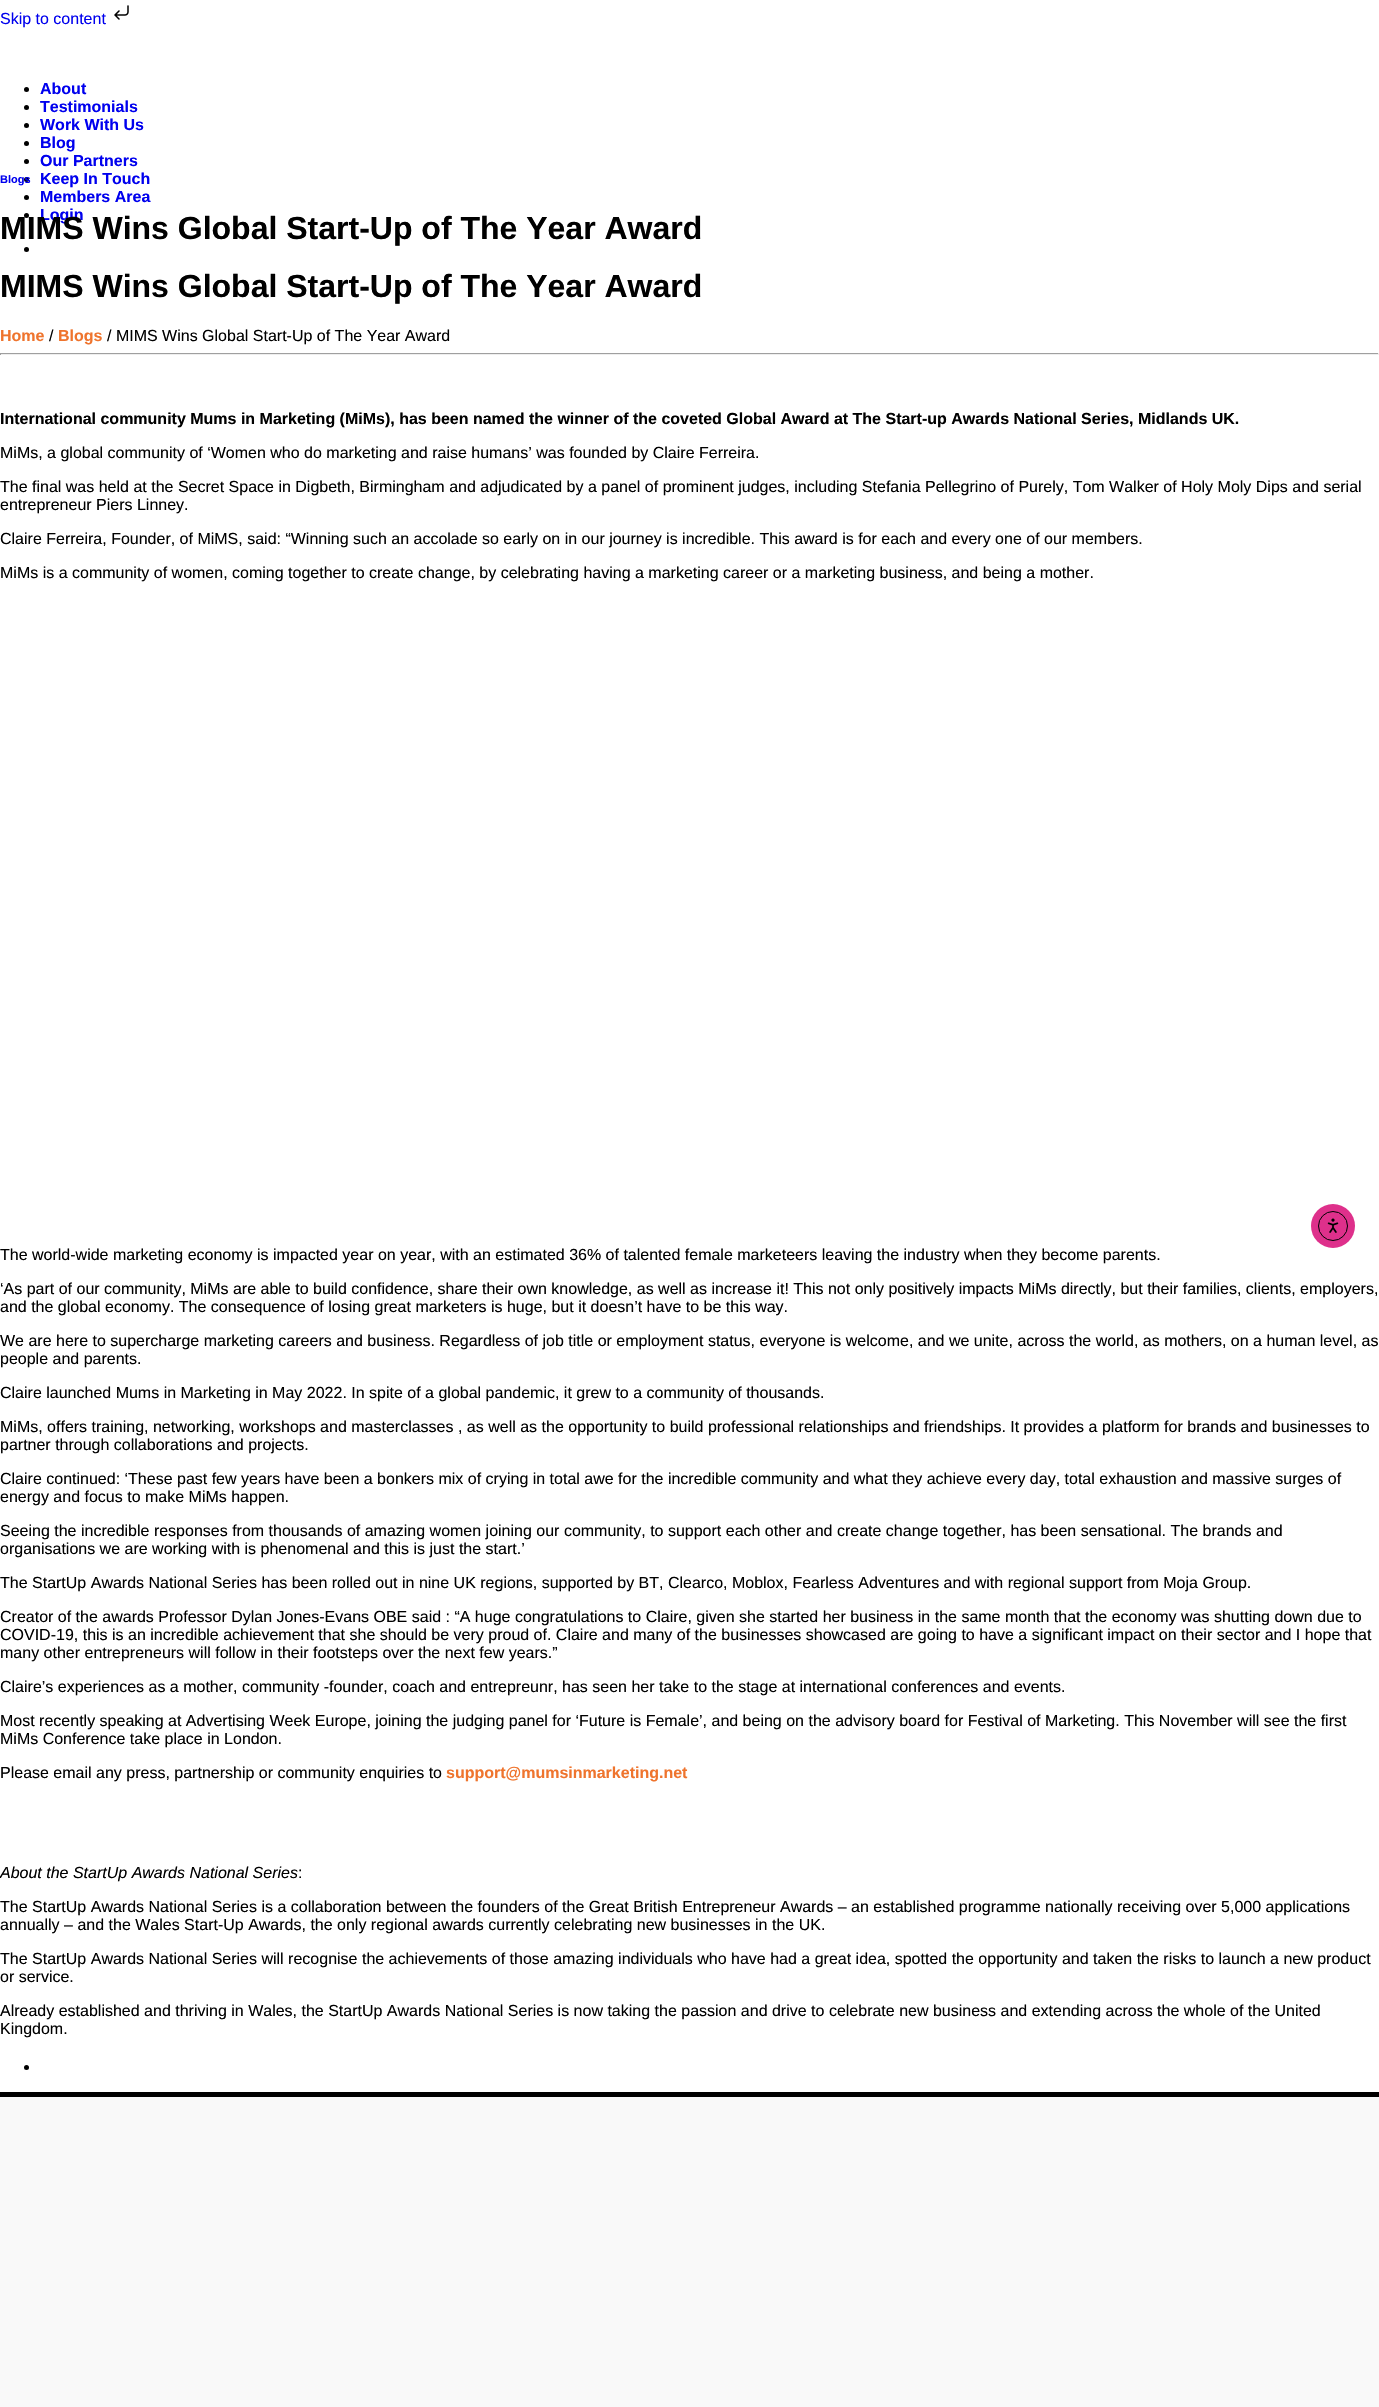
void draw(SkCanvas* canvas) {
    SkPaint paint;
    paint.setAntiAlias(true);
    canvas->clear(0xFFFFFFFF);
    SkFont font1(fontMgr->matchFamilyStyle("Liberation Sans", SkFontStyle::Normal()), 16);
    font1.setSubpixel(true);
    paint.setColor(0xFF0000EE);
    canvas->drawString("Skip to content", 0, 24, font1, paint);
    canvas->drawImageRect(SkImages::DeferredFromEncodedData(SkData::MakeFromFileName("img1.png")), SkRect::MakeXYWH(114, 5, 15, 15), SkSamplingOptions());
    paint.setColor(0xFF000000);
    canvas->drawCircle(26.5f, 89.5f, 2.5f, paint);
    SkFont font2(fontMgr->matchFamilyStyle("Liberation Sans", SkFontStyle::Bold()), 16);
    font2.setSubpixel(true);
    paint.setColor(0xFF0000EE);
    canvas->drawString("About", 40, 94, font2, paint);
    paint.setColor(0xFF000000);
    canvas->drawCircle(26.5f, 107.5f, 2.5f, paint);
    paint.setColor(0xFF0000EE);
    canvas->drawString("Testimonials", 40, 112, font2, paint);
    paint.setColor(0xFF000000);
    canvas->drawCircle(26.5f, 125.5f, 2.5f, paint);
    paint.setColor(0xFF0000EE);
    canvas->drawString("Work With Us", 40, 130, font2, paint);
    paint.setColor(0xFF000000);
    canvas->drawCircle(26.5f, 143.5f, 2.5f, paint);
    paint.setColor(0xFF0000EE);
    canvas->drawString("Blog", 40, 148, font2, paint);
    paint.setColor(0xFF000000);
    canvas->drawCircle(26.5f, 161.5f, 2.5f, paint);
    paint.setColor(0xFF0000EE);
    canvas->drawString("Our Partners", 40, 166, font2, paint);
    paint.setColor(0xFF000000);
    canvas->drawCircle(26.5f, 179.5f, 2.5f, paint);
    paint.setColor(0xFF0000EE);
    canvas->drawString("Keep In Touch", 40, 184, font2, paint);
    paint.setColor(0xFF000000);
    canvas->drawCircle(26.5f, 197.5f, 2.5f, paint);
    paint.setColor(0xFF0000EE);
    canvas->drawString("Members Area", 40, 202, font2, paint);
    paint.setColor(0xFF000000);
    canvas->drawCircle(26.5f, 215.5f, 2.5f, paint);
    paint.setColor(0xFF0000EE);
    canvas->drawString("Login", 40, 220, font2, paint);
    paint.setColor(0xFF000000);
    canvas->drawCircle(26.5f, 249.5f, 2.5f, paint);
    SkFont font3(fontMgr->matchFamilyStyle("Liberation Sans", SkFontStyle::Bold()), 11);
    font3.setSubpixel(true);
    paint.setColor(0xFF0000EE);
    canvas->drawString("Blogs", 0, 183, font3, paint);
    SkFont font4(fontMgr->matchFamilyStyle("Liberation Sans", SkFontStyle::Bold()), 32);
    font4.setSubpixel(true);
    paint.setColor(0xFF000000);
    canvas->drawString("MIMS Wins Global Start-Up of The Year Award", 0, 239, font4, paint);
    canvas->drawString("MIMS Wins Global Start-Up of The Year Award", 0, 297, font4, paint);
    paint.setColor(0xFFEF742D);
    canvas->drawString("Home", 0, 341, font2, paint);
    paint.setColor(0xFF000000);
    canvas->drawString("/", 49, 341, font1, paint);
    paint.setColor(0xFFEF742D);
    canvas->drawString("Blogs", 58, 341, font2, paint);
    paint.setColor(0xFF000000);
    canvas->drawString("/ MIMS Wins Global Start-Up of The Year Award", 107, 341, font1, paint);
    paint.setColor(0xFF9F9F9F);
    canvas->drawRect(SkRect::MakeXYWH(0, 353, 1379, 1), paint);
    paint.setColor(0xFFEEEEEE);
    canvas->drawRect(SkRect::MakeXYWH(1378, 353, 1, 2), paint);
    canvas->drawRect(SkRect::MakeXYWH(0, 354, 1379, 1), paint);
    paint.setColor(0xFF9F9F9F);
    canvas->drawRect(SkRect::MakeXYWH(0, 353, 1, 2), paint);
    paint.setColor(0xFF000000);
    canvas->drawString("International community Mums in Marketing (MiMs), has been named the winner of the coveted Global Award at The Start-up Awards National Series, Midlands UK.", 0, 424, font2, paint);
    canvas->drawString("MiMs, a global community of ‘Women who do marketing and raise humans’ was founded by Claire Ferreira.", 0, 458, font1, paint);
    canvas->drawString("The final was held at the Secret Space in Digbeth, Birmingham and adjudicated by a panel of prominent judges, including Stefania Pellegrino of Purely, Tom Walker of Holy Moly Dips and serial", 0, 492, font1, paint);
    canvas->drawString("entrepreneur Piers Linney.", 0, 510, font1, paint);
    canvas->drawString("Claire Ferreira, Founder, of MiMS, said: “Winning such an accolade so early on in our journey is incredible. This award is for each and every one of our members.", 0, 544, font1, paint);
    canvas->drawString("MiMs is a community of women, coming together to create change, by celebrating having a marketing career or a marketing business, and being a mother.", 0, 578, font1, paint);
    canvas->drawString("The world-wide marketing economy is impacted year on year, with an estimated 36% of talented female marketeers leaving the industry when they become parents.", 0, 1260, font1, paint);
    canvas->drawString("‘As part of our community, MiMs are able to build confidence, share their own knowledge, as well as increase it! This not only positively impacts MiMs directly, but their families, clients, employers,", 0, 1294, font1, paint);
    canvas->drawString("and the global economy. The consequence of losing great marketers is huge, but it doesn’t have to be this way.", 0, 1312, font1, paint);
    canvas->drawString("We are here to supercharge marketing careers and business. Regardless of job title or employment status, everyone is welcome, and we unite, across the world, as mothers, on a human level, as", 0, 1346, font1, paint);
    canvas->drawString("people and parents.", 0, 1364, font1, paint);
    canvas->drawString("Claire launched Mums in Marketing in May 2022. In spite of a global pandemic, it grew to a community of thousands.", 0, 1398, font1, paint);
    canvas->drawString("MiMs, offers training, networking, workshops and masterclasses , as well as the opportunity to build professional relationships and friendships. It provides a platform for brands and businesses to", 0, 1432, font1, paint);
    canvas->drawString("partner through collaborations and projects.", 0, 1450, font1, paint);
    canvas->drawString("Claire continued: ‘These past few years have been a bonkers mix of crying in total awe for the incredible community and what they achieve every day, total exhaustion and massive surges of", 0, 1484, font1, paint);
    canvas->drawString("energy and focus to make MiMs happen.", 0, 1502, font1, paint);
    canvas->drawString("Seeing the incredible responses from thousands of amazing women joining our community, to support each other and create change together, has been sensational. The brands and", 0, 1536, font1, paint);
    canvas->drawString("organisations we are working with is phenomenal and this is just the start.’", 0, 1554, font1, paint);
    canvas->drawString("The StartUp Awards National Series has been rolled out in nine UK regions, supported by BT, Clearco, Moblox, Fearless Adventures and with regional support from Moja Group.", 0, 1588, font1, paint);
    canvas->drawString("Creator of the awards Professor Dylan Jones-Evans OBE said : “A huge congratulations to Claire, given she started her business in the same month that the economy was shutting down due to", 0, 1622, font1, paint);
    canvas->drawString("COVID-19, this is an incredible achievement that she should be very proud of. Claire and many of the businesses showcased are going to have a significant impact on their sector and I hope that", 0, 1640, font1, paint);
    canvas->drawString("many other entrepreneurs will follow in their footsteps over the next few years.”", 0, 1658, font1, paint);
    canvas->drawString("Claire’s experiences as a mother, community -founder, coach and entrepreunr, has seen her take to the stage at international conferences and events.", 0, 1692, font1, paint);
    canvas->drawString("Most recently speaking at Advertising Week Europe, joining the judging panel for ‘Future is Female’, and being on the advisory board for Festival of Marketing. This November will see the first", 0, 1726, font1, paint);
    canvas->drawString("MiMs Conference take place in London.", 0, 1744, font1, paint);
    canvas->drawString("Please email any press, partnership or community enquiries to", 0, 1778, font1, paint);
    paint.setColor(0xFFEF742D);
    canvas->drawString("support@mumsinmarketing.net", 446, 1778, font2, paint);
    SkFont font5(fontMgr->matchFamilyStyle("Liberation Sans", SkFontStyle::Italic()), 16);
    font5.setSubpixel(true);
    paint.setColor(0xFF000000);
    canvas->drawString("About the StartUp Awards National Series", 0, 1878, font5, paint);
    canvas->drawString(":", 298, 1878, font1, paint);
    canvas->drawString("The StartUp Awards National Series is a collaboration between the founders of the Great British Entrepreneur Awards – an established programme nationally receiving over 5,000 applications", 0, 1912, font1, paint);
    canvas->drawString("annually – and the Wales Start-Up Awards, the only regional awards currently celebrating new businesses in the UK.", 0, 1930, font1, paint);
    canvas->drawString("The StartUp Awards National Series will recognise the achievements of those amazing individuals who have had a great idea, spotted the opportunity and taken the risks to launch a new product", 0, 1964, font1, paint);
    canvas->drawString("or service.", 0, 1982, font1, paint);
    canvas->drawString("Already established and thriving in Wales, the StartUp Awards National Series is now taking the passion and drive to celebrate new business and extending across the whole of the United", 0, 2016, font1, paint);
    canvas->drawString("Kingdom.", 0, 2034, font1, paint);
    canvas->drawCircle(26.5f, 2067.5f, 2.5f, paint);
    paint.setColor(0xFFF9F9F9);
    canvas->drawRect(SkRect::MakeXYWH(0, 2097, 1379, 310), paint);
    paint.setColor(0xFF000000);
    canvas->drawRect(SkRect::MakeXYWH(0, 2092, 1379, 5), paint);
    paint.setColor(0xFFDE308B);
    canvas->drawCircle(1333, 1226, 22, paint);
    paint.setStyle(SkPaint::kStroke_Style);
    paint.setStrokeWidth(1);
    paint.setColor(0xFF000000);
    canvas->drawCircle(1333, 1226, 14.5f, paint);
    canvas->drawImageRect(SkImages::DeferredFromEncodedData(SkData::MakeFromFileName("img2.png")), SkRect::MakeXYWH(1327, 1218, 12, 15), SkSamplingOptions());
}
